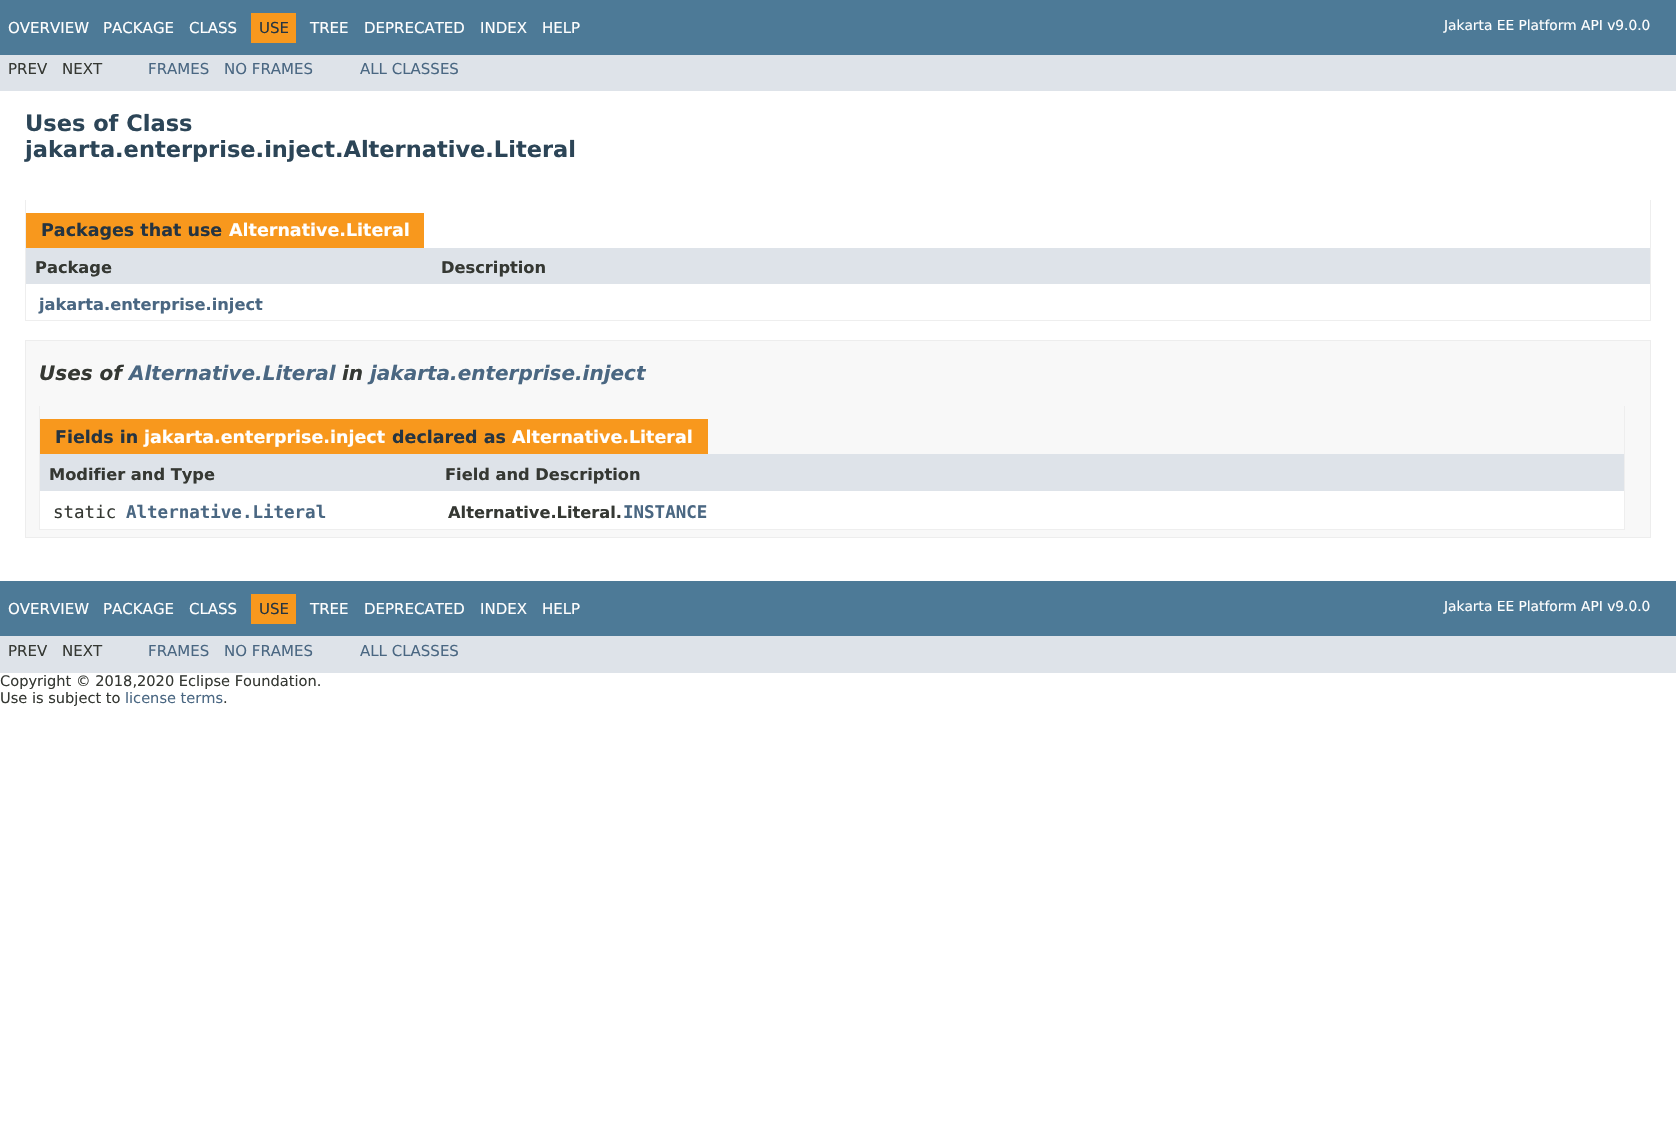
void draw(SkCanvas* canvas) {
    SkPaint paint;
    paint.setAntiAlias(true);
    canvas->clear(0xFFFFFFFF);
    paint.setColor(0xFF4D7A97);
    canvas->drawRect(SkRect::MakeXYWH(0, 0, 1676, 55), paint);
    SkFont font1(fontMgr->matchFamilyStyle("DejaVu Sans", SkFontStyle::Normal()), 15);
    font1.setSubpixel(true);
    paint.setColor(0xFFFFFFFF);
    canvas->drawString("OVERVIEW", 8, 33, font1, paint);
    canvas->drawString("PACKAGE", 103, 33, font1, paint);
    canvas->drawString("CLASS", 189, 33, font1, paint);
    paint.setColor(0xFFF8981D);
    canvas->drawRect(SkRect::MakeXYWH(251, 13, 45, 30), paint);
    paint.setColor(0xFF253441);
    canvas->drawString("USE", 259, 33, font1, paint);
    paint.setColor(0xFFFFFFFF);
    canvas->drawString("TREE", 310, 33, font1, paint);
    canvas->drawString("DEPRECATED", 364, 33, font1, paint);
    canvas->drawString("INDEX", 480, 33, font1, paint);
    canvas->drawString("HELP", 542, 33, font1, paint);
    SkFont font2(fontMgr->matchFamilyStyle("DejaVu Sans", SkFontStyle::Normal()), 13.75f);
    font2.setSubpixel(true);
    canvas->drawString("Jakarta EE Platform API v9.0.0", 1444, 30, font2, paint);
    paint.setColor(0xFFDEE3E9);
    canvas->drawRect(SkRect::MakeXYWH(0, 55, 1676, 36), paint);
    paint.setColor(0xFF353833);
    canvas->drawString("PREV", 8, 74, font1, paint);
    canvas->drawString("NEXT", 62, 74, font1, paint);
    paint.setColor(0xFF4A6782);
    canvas->drawString("FRAMES", 148, 74, font1, paint);
    canvas->drawString("NO FRAMES", 224, 74, font1, paint);
    canvas->drawString("ALL CLASSES", 360, 74, font1, paint);
    SkFont font3(fontMgr->matchFamilyStyle("DejaVu Sans", SkFontStyle::Bold()), 22.5f);
    font3.setSubpixel(true);
    paint.setColor(0xFF2C4557);
    canvas->drawString("Uses of Class", 25, 131, font3, paint);
    canvas->drawString("jakarta.enterprise.inject.Alternative.Literal", 25, 157, font3, paint);
    paint.setColor(0xFFEEEEEE);
    canvas->drawRect(SkRect::MakeXYWH(1650, 200, 1, 121), paint);
    canvas->drawRect(SkRect::MakeXYWH(25, 320, 1626, 1), paint);
    canvas->drawRect(SkRect::MakeXYWH(25, 200, 1, 121), paint);
    paint.setColor(0xFFF8981D);
    canvas->drawRect(SkRect::MakeXYWH(26, 213, 398, 35), paint);
    SkFont font4(fontMgr->matchFamilyStyle("DejaVu Sans", SkFontStyle::Bold()), 17.5f);
    font4.setSubpixel(true);
    paint.setColor(0xFF253441);
    canvas->drawString("Packages that use", 41, 236, font4, paint);
    paint.setColor(0xFFFFFFFF);
    canvas->drawString("Alternative.Literal", 229, 236, font4, paint);
    paint.setColor(0xFFDEE3E9);
    canvas->drawRect(SkRect::MakeXYWH(26, 248, 1624, 36), paint);
    SkFont font5(fontMgr->matchFamilyStyle("DejaVu Sans", SkFontStyle::Bold()), 16.25f);
    font5.setSubpixel(true);
    paint.setColor(0xFF353833);
    canvas->drawString("Package", 35, 273, font5, paint);
    canvas->drawString("Description", 441, 273, font5, paint);
    paint.setColor(0xFF4A6782);
    canvas->drawString("jakarta.enterprise.inject", 39, 310, font5, paint);
    paint.setColor(0xFFF8F8F8);
    canvas->drawRect(SkRect::MakeXYWH(25.5f, 340.5f, 1625, 197), paint);
    paint.setStyle(SkPaint::kStroke_Style);
    paint.setStrokeWidth(1);
    paint.setColor(0xFFEDEDED);
    canvas->drawRect(SkRect::MakeXYWH(25.5f, 340.5f, 1625, 197), paint);
    SkFont font6(fontMgr->matchFamilyStyle("DejaVu Sans", SkFontStyle::BoldItalic()), 20);
    font6.setSubpixel(true);
    paint.setStyle(SkPaint::kFill_Style);
    paint.setColor(0xFF353833);
    canvas->drawString("Uses of", 39, 380, font6, paint);
    paint.setColor(0xFF4A6782);
    canvas->drawString("Alternative.Literal", 129, 380, font6, paint);
    paint.setColor(0xFF353833);
    canvas->drawString("in", 342, 380, font6, paint);
    paint.setColor(0xFF4A6782);
    canvas->drawString("jakarta.enterprise.inject", 370, 380, font6, paint);
    paint.setColor(0xFFEEEEEE);
    canvas->drawRect(SkRect::MakeXYWH(1624, 406, 1, 124), paint);
    canvas->drawRect(SkRect::MakeXYWH(39, 529, 1586, 1), paint);
    canvas->drawRect(SkRect::MakeXYWH(39, 406, 1, 124), paint);
    paint.setColor(0xFFF8981D);
    canvas->drawRect(SkRect::MakeXYWH(40, 419, 668, 35), paint);
    paint.setColor(0xFF253441);
    canvas->drawString("Fields in", 55, 443, font4, paint);
    paint.setColor(0xFFFFFFFF);
    canvas->drawString("jakarta.enterprise.inject", 144, 443, font4, paint);
    paint.setColor(0xFF253441);
    canvas->drawString("declared as", 392, 443, font4, paint);
    paint.setColor(0xFFFFFFFF);
    canvas->drawString("Alternative.Literal", 512, 443, font4, paint);
    paint.setColor(0xFFDEE3E9);
    canvas->drawRect(SkRect::MakeXYWH(40, 454, 1584, 37), paint);
    paint.setColor(0xFF353833);
    canvas->drawString("Modifier and Type", 49, 480, font5, paint);
    canvas->drawString("Field and Description", 445, 480, font5, paint);
    paint.setColor(0xFFFFFFFF);
    canvas->drawRect(SkRect::MakeXYWH(40, 491, 1584, 38), paint);
    SkFont font7(fontMgr->matchFamilyStyle("DejaVu Sans Mono", SkFontStyle::Normal()), 17.5f);
    font7.setSubpixel(true);
    paint.setColor(0xFF353833);
    canvas->drawString("static", 53, 518, font7, paint);
    SkFont font8(fontMgr->matchFamilyStyle("DejaVu Sans Mono", SkFontStyle::Bold()), 17.5f);
    font8.setSubpixel(true);
    paint.setColor(0xFF4A6782);
    canvas->drawString("Alternative.Literal", 126, 518, font8, paint);
    paint.setColor(0xFF353833);
    canvas->drawString("Alternative.Literal.", 448, 518, font5, paint);
    paint.setColor(0xFF4A6782);
    canvas->drawString("INSTANCE", 623, 518, font8, paint);
    paint.setColor(0xFF4D7A97);
    canvas->drawRect(SkRect::MakeXYWH(0, 581, 1676, 55), paint);
    paint.setColor(0xFFFFFFFF);
    canvas->drawString("OVERVIEW", 8, 614, font1, paint);
    canvas->drawString("PACKAGE", 103, 614, font1, paint);
    canvas->drawString("CLASS", 189, 614, font1, paint);
    paint.setColor(0xFFF8981D);
    canvas->drawRect(SkRect::MakeXYWH(251, 594, 45, 30), paint);
    paint.setColor(0xFF253441);
    canvas->drawString("USE", 259, 614, font1, paint);
    paint.setColor(0xFFFFFFFF);
    canvas->drawString("TREE", 310, 614, font1, paint);
    canvas->drawString("DEPRECATED", 364, 614, font1, paint);
    canvas->drawString("INDEX", 480, 614, font1, paint);
    canvas->drawString("HELP", 542, 614, font1, paint);
    canvas->drawString("Jakarta EE Platform API v9.0.0", 1444, 611, font2, paint);
    paint.setColor(0xFFDEE3E9);
    canvas->drawRect(SkRect::MakeXYWH(0, 636, 1676, 37), paint);
    paint.setColor(0xFF353833);
    canvas->drawString("PREV", 8, 656, font1, paint);
    canvas->drawString("NEXT", 62, 656, font1, paint);
    paint.setColor(0xFF4A6782);
    canvas->drawString("FRAMES", 148, 656, font1, paint);
    canvas->drawString("NO FRAMES", 224, 656, font1, paint);
    canvas->drawString("ALL CLASSES", 360, 656, font1, paint);
    SkFont font9(fontMgr->matchFamilyStyle("DejaVu Sans", SkFontStyle::Normal()), 14.6f);
    font9.setSubpixel(true);
    paint.setColor(0xFF353833);
    canvas->drawString("Copyright © 2018,2020 Eclipse Foundation.", 0, 686, font9, paint);
    canvas->drawString("Use is subject to", 0, 703, font9, paint);
    paint.setColor(0xFF4A6782);
    canvas->drawString("license terms", 125, 703, font9, paint);
    paint.setColor(0xFF353833);
    canvas->drawString(".", 223, 703, font9, paint);
}
